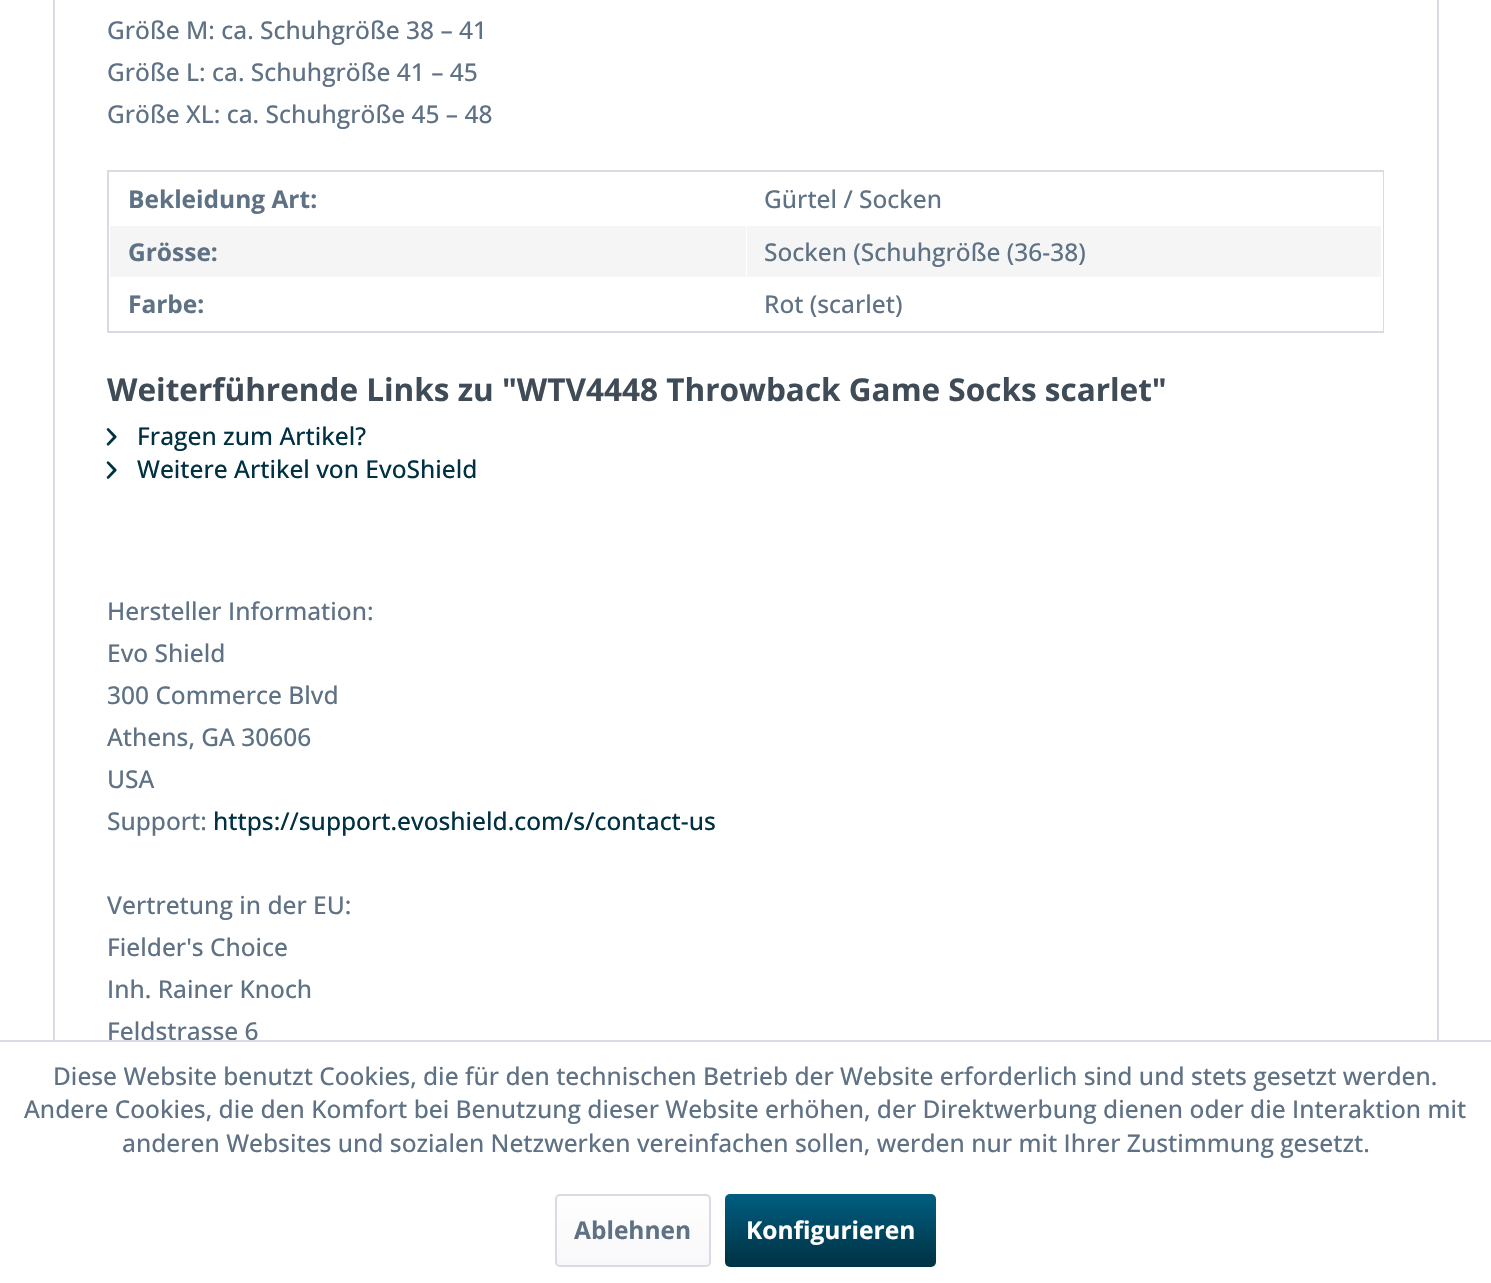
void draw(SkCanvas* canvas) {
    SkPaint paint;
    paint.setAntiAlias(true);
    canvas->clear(0xFFFFFFFF);
    paint.setStyle(SkPaint::kStroke_Style);
    paint.setStrokeWidth(2);
    paint.setColor(0xFFDADAE5);
    canvas->drawRect(SkRect::MakeXYWH(54, -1, 1384, 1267), paint);
    SkFont font1(fontMgr->matchFamilyStyle("Open Sans", SkFontStyle(500, SkFontStyle::kNormal_Width, SkFontStyle::kUpright_Slant)), 24.5f);
    font1.setSubpixel(true);
    paint.setStyle(SkPaint::kFill_Style);
    paint.setColor(0xFF5F7285);
    canvas->drawString("Größe M: ca. Schuhgröße 38 – 41", 107, 39, font1, paint);
    canvas->drawString("Größe L: ca. Schuhgröße 41 – 45", 107, 81, font1, paint);
    canvas->drawString("Größe XL: ca. Schuhgröße 45 – 48", 107, 123, font1, paint);
    paint.setStyle(SkPaint::kStroke_Style);
    paint.setColor(0xFFDADAE5);
    canvas->drawRect(SkRect::MakeXYWH(108, 171, 1275, 161), paint);
    paint.setStyle(SkPaint::kFill_Style);
    paint.setColor(0xFFFFFFFF);
    canvas->drawRect(SkRect::MakeXYWH(1382, 172, 1, 159), paint);
    SkFont font2(fontMgr->matchFamilyStyle("Open Sans", SkFontStyle::Bold()), 24.5f);
    font2.setSubpixel(true);
    paint.setColor(0xFF5F7285);
    canvas->drawString("Bekleidung Art:", 128, 208, font2, paint);
    canvas->drawString("Gürtel / Socken", 764, 208, font1, paint);
    paint.setColor(0xFFF5F5F5);
    canvas->drawRect(SkRect::MakeXYWH(110, 226, 636, 51), paint);
    paint.setColor(0xFF5F7285);
    canvas->drawString("Grösse:", 128, 261, font2, paint);
    paint.setColor(0xFFF5F5F5);
    canvas->drawRect(SkRect::MakeXYWH(747, 226, 634, 51), paint);
    paint.setColor(0xFF5F7285);
    canvas->drawString("Socken (Schuhgröße (36-38)", 764, 261, font1, paint);
    canvas->drawString("Farbe:", 128, 313, font2, paint);
    canvas->drawString("Rot (scarlet)", 764, 313, font1, paint);
    SkFont font3(fontMgr->matchFamilyStyle("Open Sans", SkFontStyle::Bold()), 31.5f);
    font3.setSubpixel(true);
    paint.setColor(0xFF3F4C58);
    canvas->drawString("Weiterführende Links zu \"WTV4448 Throwback Game Socks scarlet\"", 107, 401, font3, paint);
    canvas->drawImageRect(SkImages::DeferredFromEncodedData(SkData::MakeFromFileName("img1.png")), SkRect::MakeXYWH(106, 428, 11, 18), SkSamplingOptions());
    paint.setColor(0xFF003143);
    canvas->drawString("Fragen zum Artikel?", 137, 445, font1, paint);
    canvas->drawImageRect(SkImages::DeferredFromEncodedData(SkData::MakeFromFileName("img2.png")), SkRect::MakeXYWH(106, 461, 11, 18), SkSamplingOptions());
    canvas->drawString("Weitere Artikel von EvoShield", 137, 478, font1, paint);
    paint.setColor(0xFF5F7285);
    canvas->drawString("Hersteller Information:", 107, 620, font1, paint);
    canvas->drawString("Evo Shield", 107, 662, font1, paint);
    canvas->drawString("300 Commerce Blvd", 107, 704, font1, paint);
    canvas->drawString("Athens, GA 30606", 107, 746, font1, paint);
    canvas->drawString("USA", 107, 788, font1, paint);
    canvas->drawString("Support:", 107, 830, font1, paint);
    paint.setColor(0xFF003143);
    canvas->drawString("https://support.evoshield.com/s/contact-us", 213, 830, font1, paint);
    paint.setColor(0xFF5F7285);
    canvas->drawString("Vertretung in der EU:", 107, 914, font1, paint);
    canvas->drawString("Fielder's Choice", 107, 956, font1, paint);
    canvas->drawString("Inh. Rainer Knoch", 107, 998, font1, paint);
    canvas->drawString("Feldstrasse 6", 107, 1040, font1, paint);
    paint.setColor(0xFFFFFFFF);
    canvas->drawRect(SkRect::MakeXYWH(53, 1042, 1386, 225), paint);
    paint.setColor(0xFFDADAE5);
    canvas->drawRect(SkRect::MakeXYWH(0, 1040, 1491, 2), paint);
    paint.setColor(0xFF5F7285);
    canvas->drawString("Diese Website benutzt Cookies, die für den technischen Betrieb der Website erforderlich sind und stets gesetzt werden.", 53, 1085, font1, paint);
    canvas->drawString("Andere Cookies, die den Komfort bei Benutzung dieser Website erhöhen, der Direktwerbung dienen oder die Interaktion mit", 24, 1118, font1, paint);
    canvas->drawString("anderen Websites und sozialen Netzwerken vereinfachen sollen, werden nur mit Ihrer Zustimmung gesetzt.", 122, 1152, font1, paint);
    {
        const SkColor colors[] = {0xFFFFFFFF, 0xFFF8F8FA};
        const float stops[] = {0, 1};
        const SkPoint ends[] = {{633, 1195}, {633, 1265}};
        paint.setShader(SkGradientShader::MakeLinear(ends, colors, stops, 2, SkTileMode::kClamp));
        paint.setAlpha(255);
    }
    canvas->drawRoundRect(SkRect::MakeXYWH(557, 1195, 152, 70), 4, 4, paint);
    paint.setStyle(SkPaint::kStroke_Style);
    paint.setShader(nullptr);
    paint.setColor(0xFFDADAE5);
    canvas->drawRoundRect(SkRect::MakeXYWH(556, 1195, 154, 71), 4, 4, paint);
    paint.setStyle(SkPaint::kFill_Style);
    paint.setColor(0xFF5F7285);
    canvas->drawString("Ablehnen", 574, 1239, font2, paint);
    {
        const SkColor colors[] = {0xFF005E80, 0xFF003143};
        const float stops[] = {0, 1};
        const SkPoint ends[] = {{830, 1194}, {830, 1267}};
        paint.setShader(SkGradientShader::MakeLinear(ends, colors, stops, 2, SkTileMode::kClamp));
        paint.setAlpha(255);
    }
    canvas->drawRoundRect(SkRect::MakeXYWH(725, 1194, 211, 73), 5, 5, paint);
    paint.setShader(nullptr);
    paint.setColor(0xFFFFFFFF);
    canvas->drawString("Konfigurieren", 746, 1239, font2, paint);
}
